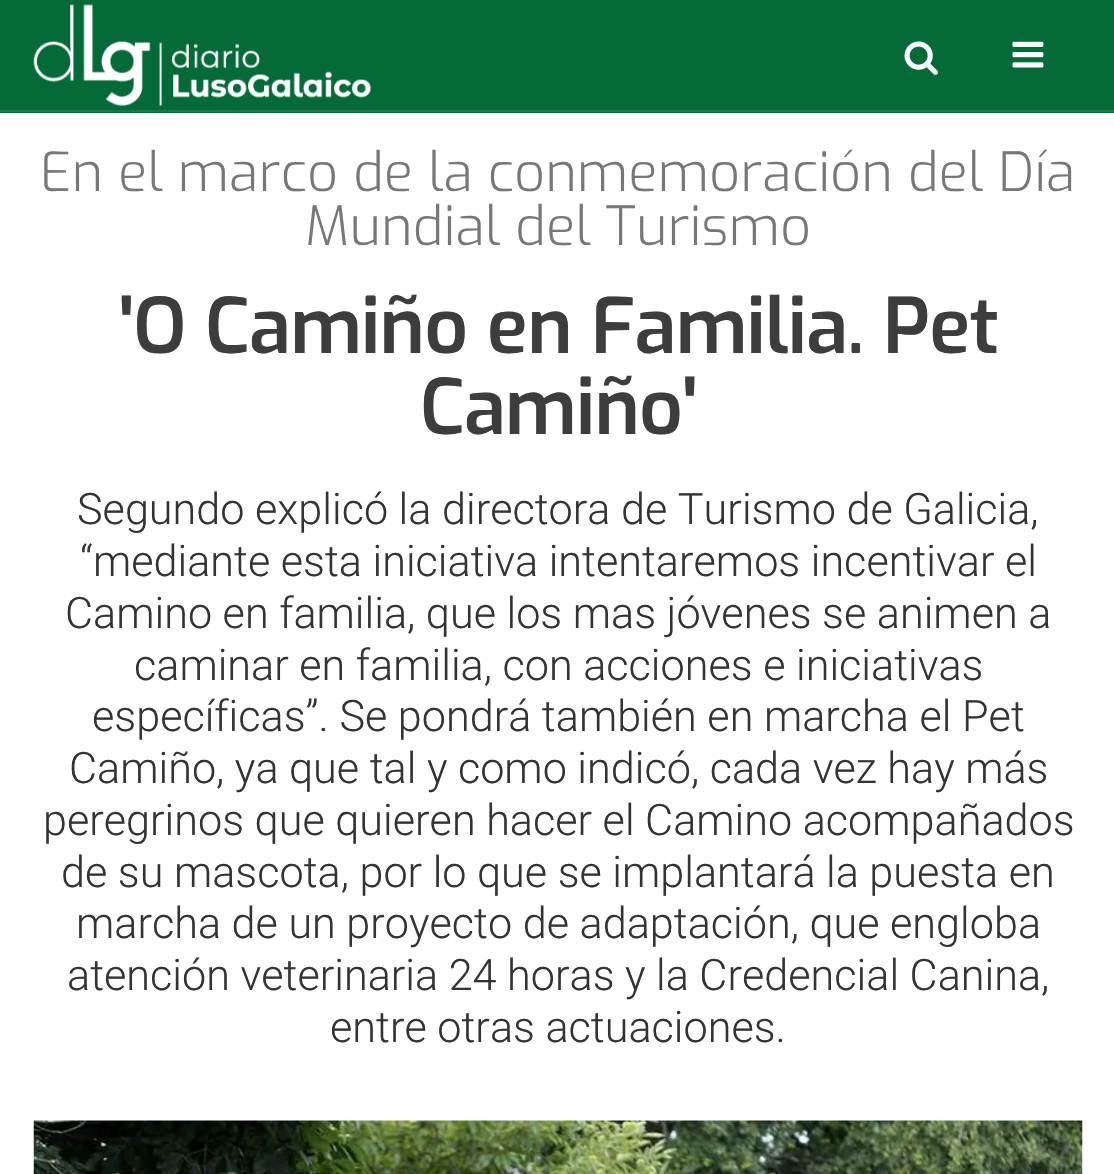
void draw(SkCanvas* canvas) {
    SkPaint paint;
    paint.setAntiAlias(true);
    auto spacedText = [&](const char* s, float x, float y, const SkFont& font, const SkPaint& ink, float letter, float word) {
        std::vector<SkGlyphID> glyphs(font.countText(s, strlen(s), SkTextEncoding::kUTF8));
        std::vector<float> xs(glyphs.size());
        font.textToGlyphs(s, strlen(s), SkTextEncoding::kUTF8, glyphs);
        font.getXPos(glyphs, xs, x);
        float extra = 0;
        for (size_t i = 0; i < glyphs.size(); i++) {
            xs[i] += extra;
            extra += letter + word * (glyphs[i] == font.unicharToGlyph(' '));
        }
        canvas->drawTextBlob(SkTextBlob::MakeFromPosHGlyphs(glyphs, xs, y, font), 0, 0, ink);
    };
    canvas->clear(0xFFFFFFFF);
    paint.setColor(0xFF046A38);
    canvas->drawRect(SkRect::MakeXYWH(0, 0, 1114, 113), paint);
    paint.setColor(0xFF1B774A);
    canvas->drawRect(SkRect::MakeXYWH(0, 110, 1114, 2), paint);
    canvas->drawImageRect(SkImages::DeferredFromEncodedData(SkData::MakeFromFileName("img1.png")), SkRect::MakeXYWH(33, 4, 338, 102), SkSamplingOptions());
    canvas->drawImageRect(SkImages::DeferredFromEncodedData(SkData::MakeFromFileName("img2.png")), SkRect::MakeXYWH(904, 41, 34, 34), SkSamplingOptions());
    canvas->drawImageRect(SkImages::DeferredFromEncodedData(SkData::MakeFromFileName("img3.png")), SkRect::MakeXYWH(1012, 41, 32, 27), SkSamplingOptions());
    SkFont font1(fontMgr->matchFamilyStyle("Exo", SkFontStyle(300, SkFontStyle::kNormal_Width, SkFontStyle::kUpright_Slant)), 54);
    font1.setSubpixel(true);
    paint.setColor(0xFF777777);
    canvas->drawString("En el marco de la conmemoración del Día", 40, 191, font1, paint);
    canvas->drawString("Mundial del Turismo", 305, 245, font1, paint);
    SkFont font2(fontMgr->matchFamilyStyle("Exo", SkFontStyle(600, SkFontStyle::kNormal_Width, SkFontStyle::kUpright_Slant)), 76.5f);
    font2.setSubpixel(true);
    paint.setColor(0xFF3D3D3D);
    spacedText("'O Camiño en Familia. Pet", 119, 353, font2, paint, -0.75f, 0);
    spacedText("Camiño'", 420, 434, font2, paint, -0.75f, 0);
    SkFont font3(fontMgr->matchFamilyStyle("Roboto", SkFontStyle(300, SkFontStyle::kNormal_Width, SkFontStyle::kUpright_Slant)), 43.2f);
    font3.setSubpixel(true);
    paint.setColor(0xFF333333);
    canvas->drawString("Segundo explicó la directora de Turismo de Galicia,", 77, 524, font3, paint);
    canvas->drawString("“mediante esta iniciativa intentaremos incentivar el", 80, 576, font3, paint);
    canvas->drawString("Camino en familia, que los mas jóvenes se animen a", 65, 628, font3, paint);
    canvas->drawString("caminar en familia, con acciones e iniciativas", 134, 680, font3, paint);
    canvas->drawString("específicas”. Se pondrá también en marcha el Pet", 92, 731, font3, paint);
    canvas->drawString("Camiño, ya que tal y como indicó, cada vez hay más", 69, 783, font3, paint);
    canvas->drawString("peregrinos que quieren hacer el Camino acompañados", 43, 835, font3, paint);
    canvas->drawString("de su mascota, por lo que se implantará la puesta en", 61, 887, font3, paint);
    canvas->drawString("marcha de un proyecto de adaptación, que engloba", 76, 938, font3, paint);
    canvas->drawString("atención veterinaria 24 horas y la Credencial Canina,", 67, 990, font3, paint);
    canvas->drawString("entre otras actuaciones.", 330, 1042, font3, paint);
    canvas->drawImageRect(SkImages::DeferredFromEncodedData(SkData::MakeFromFileName("img4.png")), SkRect::MakeXYWH(33, 1120, 1050, 54), SkSamplingOptions());
}
